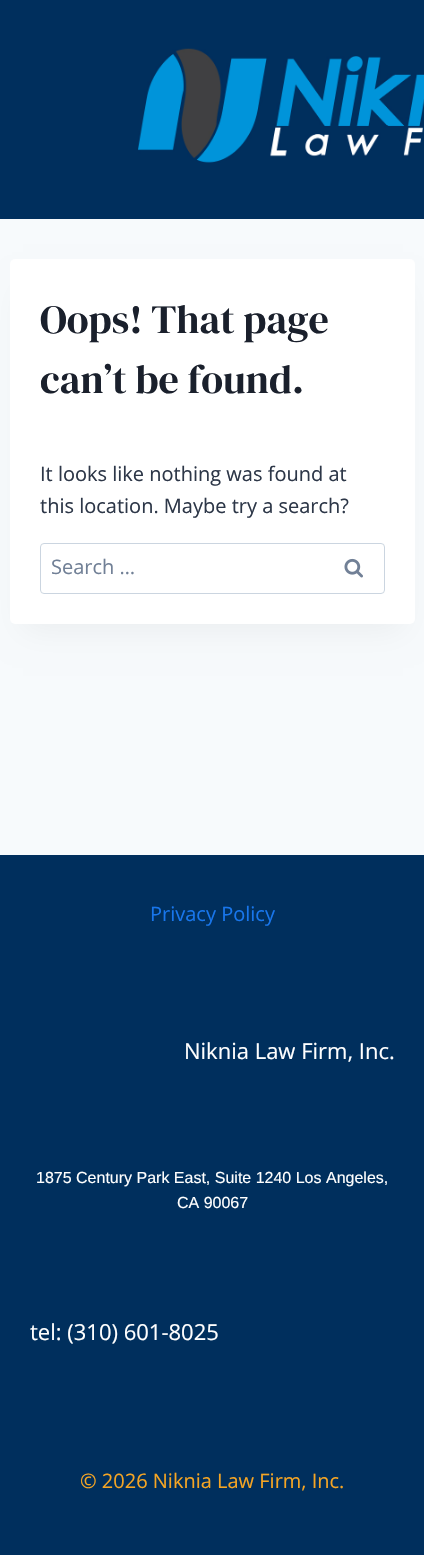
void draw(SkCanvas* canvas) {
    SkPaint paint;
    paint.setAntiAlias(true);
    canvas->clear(0xFFF7FAFC);
    paint.setColor(0xFF002F5D);
    canvas->drawRect(SkRect::MakeXYWH(0, 0, 424, 219), paint);
    canvas->drawImageRect(SkImages::DeferredFromEncodedData(SkData::MakeFromFileName("img1.png")), SkRect::MakeXYWH(138, 48, 286, 115), SkSamplingOptions());
    paint.setColor(0x0D000000);
    paint.setMaskFilter(SkMaskFilter::MakeBlur(kNormal_SkBlurStyle, 15.5f));
    canvas->drawRect(SkRect::MakeXYWH(23, 290, 380, 340), paint);
    paint.setMaskFilter(nullptr);
    paint.setColor(0xFFFFFFFF);
    canvas->drawRoundRect(SkRect::MakeXYWH(10, 259, 405, 365), 5, 5, paint);
    SkFont font1(fontMgr->matchFamilyStyle("DM Serif Display", SkFontStyle::Normal()), 40);
    font1.setSubpixel(true);
    paint.setColor(0xFF1A202C);
    canvas->drawString("Oops! That page", 40, 333, font1, paint);
    canvas->drawString("can’t be found.", 40, 393, font1, paint);
    SkFont font2(fontMgr->matchFamilyStyle("Open Sans", SkFontStyle::Normal()), 20);
    font2.setSubpixel(true);
    paint.setColor(0xFF2D3748);
    canvas->drawString("It looks like nothing was found at", 40, 481, font2, paint);
    canvas->drawString("this location. Maybe try a search?", 40, 513, font2, paint);
    paint.setStyle(SkPaint::kStroke_Style);
    paint.setStrokeWidth(1);
    paint.setColor(0xFFCBD5E0);
    canvas->drawRoundRect(SkRect::MakeXYWH(40.5f, 543.5f, 344, 50), 3.5f, 3.5f, paint);
    paint.setStyle(SkPaint::kFill_Style);
    paint.setColor(0xFF718096);
    canvas->drawString("Search …", 51, 574, font2, paint);
    canvas->drawImageRect(SkImages::DeferredFromEncodedData(SkData::MakeFromFileName("img2.png")), SkRect::MakeXYWH(344, 558, 19, 20), SkSamplingOptions());
    paint.setColor(0xFF002F5D);
    canvas->drawRect(SkRect::MakeXYWH(0, 855, 424, 700), paint);
    paint.setColor(0xFF1876EC);
    canvas->drawString("Privacy Policy", 150, 921, font2, paint);
    SkFont font3(fontMgr->matchFamilyStyle("Open Sans", SkFontStyle::Normal()), 22);
    font3.setSubpixel(true);
    paint.setColor(0xFFFFFFFF);
    canvas->drawString("Niknia Law Firm, Inc.", 184, 1059, font3, paint);
    SkFont font4(fontMgr->matchFamilyStyle("Liberation Sans", SkFontStyle::Normal()), 16);
    font4.setSubpixel(true);
    canvas->drawString("1875 Century Park East, Suite 1240 Los Angeles,", 36, 1183, font4, paint);
    canvas->drawString("CA 90067", 177, 1208, font4, paint);
    canvas->drawString("tel: (310) 601-8025", 30, 1340, font3, paint);
    paint.setColor(0xFFF5A524);
    canvas->drawString("© 2026 Niknia Law Firm, Inc.", 80, 1488, font2, paint);
}
